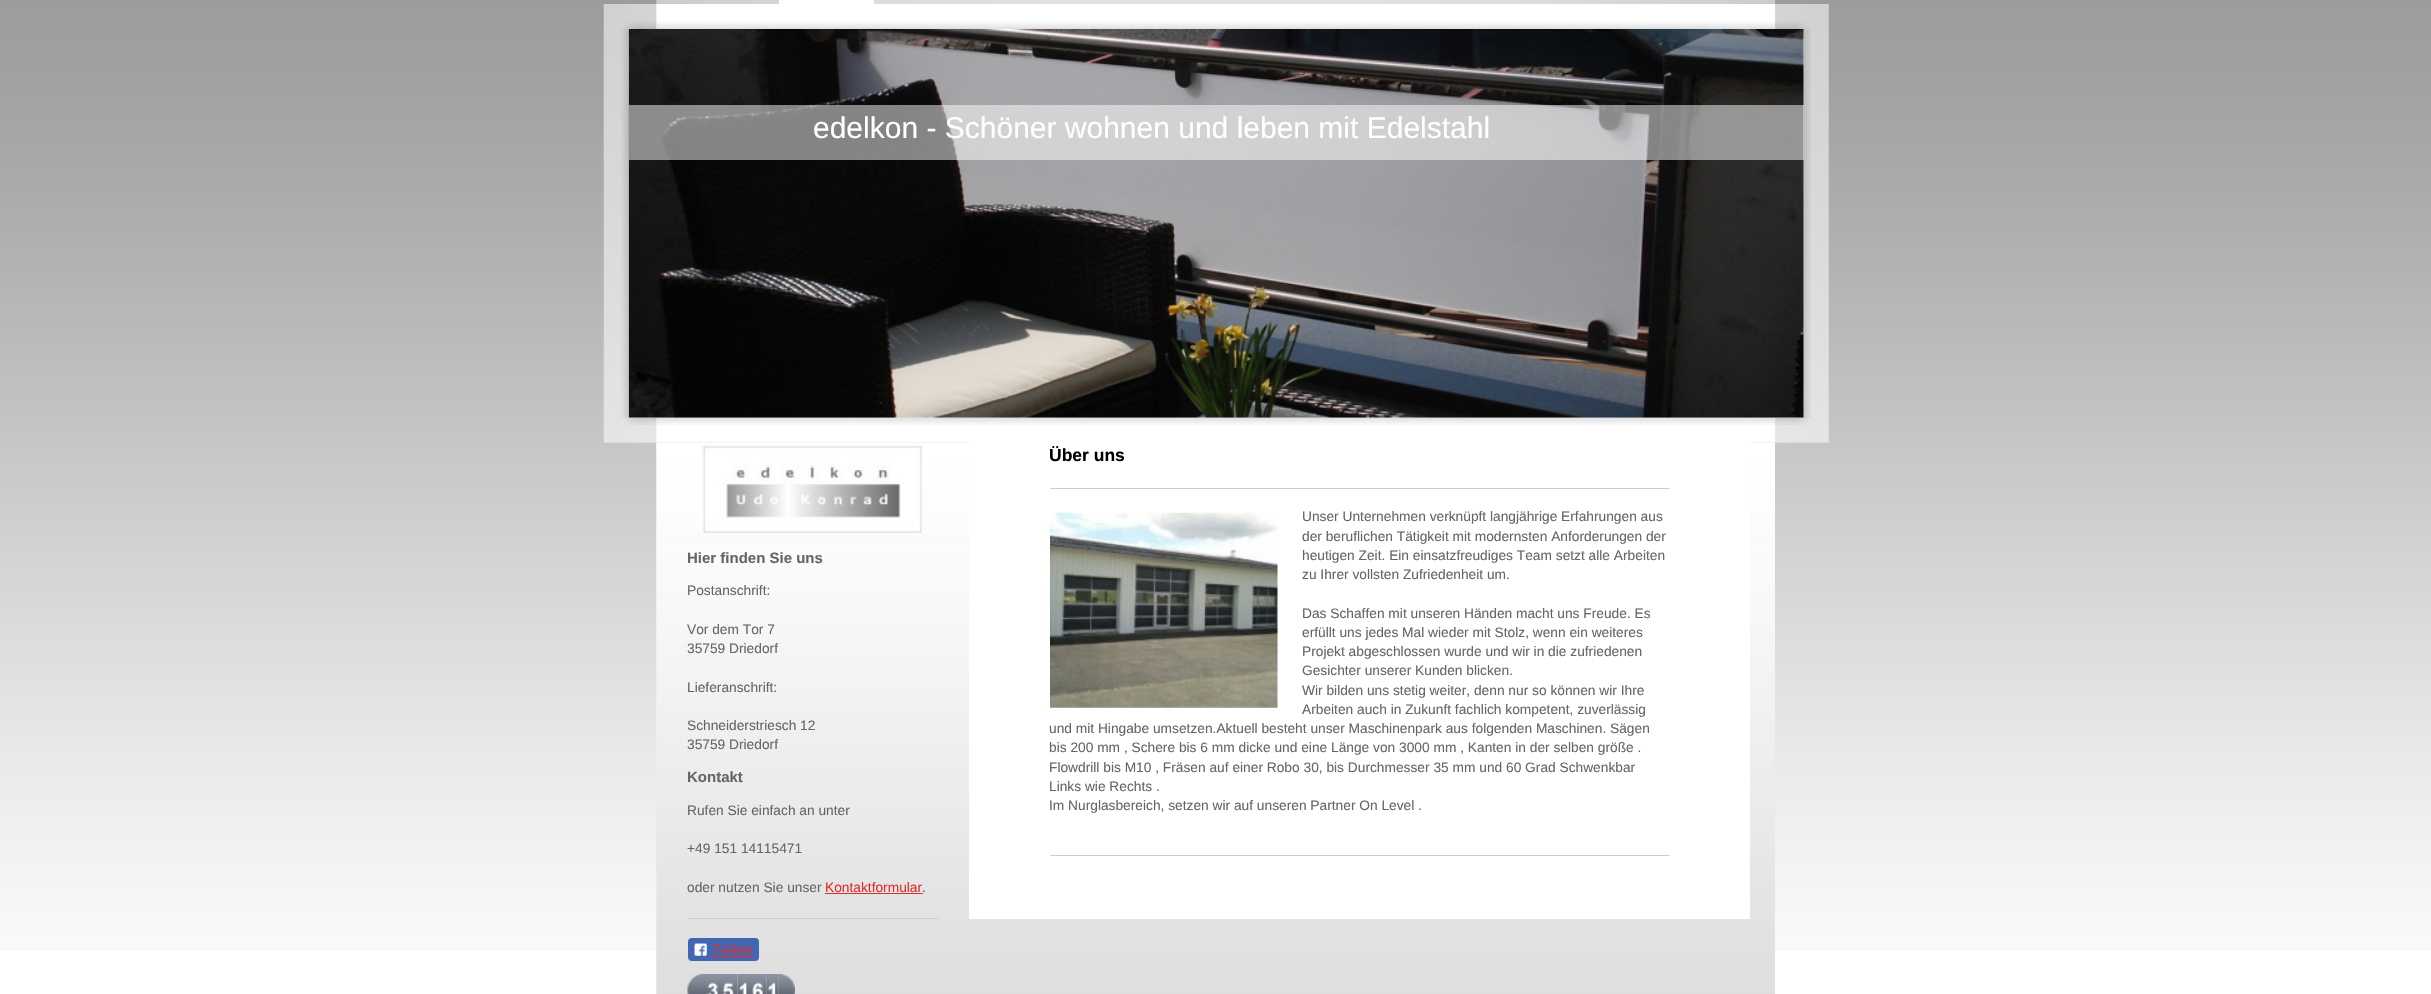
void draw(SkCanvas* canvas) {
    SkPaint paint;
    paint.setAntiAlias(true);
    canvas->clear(0xFFFFFFFF);
    canvas->drawImageRect(SkImages::DeferredFromEncodedData(SkData::MakeFromFileName("img1.png")), SkRect::MakeXYWH(0, 0, 2431, 951), SkSamplingOptions());
    canvas->drawImageRect(SkImages::DeferredFromEncodedData(SkData::MakeFromFileName("img2.png")), SkRect::MakeXYWH(656, 0, 1119, 4), SkSamplingOptions());
    paint.setColor(0xFFFFFFFF);
    canvas->drawRect(SkRect::MakeXYWH(779, 0, 95, 4), paint);
    canvas->drawImageRect(SkImages::DeferredFromEncodedData(SkData::MakeFromFileName("img3.png")), SkRect::MakeXYWH(603, 4, 1226, 439), SkSamplingOptions());
    canvas->drawImageRect(SkImages::DeferredFromEncodedData(SkData::MakeFromFileName("img4.png")), SkRect::MakeXYWH(624, 21, 1184, 8), SkSamplingOptions());
    canvas->drawImageRect(SkImages::DeferredFromEncodedData(SkData::MakeFromFileName("img5.png")), SkRect::MakeXYWH(621, 29, 1190, 389), SkSamplingOptions());
    paint.setColor(0xFFEEEEEE);
    canvas->drawRect(SkRect::MakeXYWH(629, 29, 1175, 389), paint);
    canvas->drawImageRect(SkImages::DeferredFromEncodedData(SkData::MakeFromFileName("img6.png")), SkRect::MakeXYWH(628, 29, 1176, 389), SkSamplingOptions());
    paint.setColor(0x80FFFFFF);
    canvas->drawRect(SkRect::MakeXYWH(629, 105, 1175, 55), paint);
    SkFont font1(fontMgr->matchFamilyStyle("Liberation Sans", SkFontStyle::Normal()), 30);
    font1.setSubpixel(true);
    paint.setColor(0xFFFFFFFF);
    canvas->drawString("edelkon - Schöner wohnen und leben mit Edelstahl", 813, 138, font1, paint);
    canvas->drawImageRect(SkImages::DeferredFromEncodedData(SkData::MakeFromFileName("img7.png")), SkRect::MakeXYWH(624, 418, 1184, 7), SkSamplingOptions());
    canvas->drawImageRect(SkImages::DeferredFromEncodedData(SkData::MakeFromFileName("img8.png")), SkRect::MakeXYWH(656, 443, 1119, 551), SkSamplingOptions());
    canvas->drawImageRect(SkImages::DeferredFromEncodedData(SkData::MakeFromFileName("img9.png")), SkRect::MakeXYWH(700, 445, 223, 88), SkSamplingOptions());
    SkFont font2(fontMgr->matchFamilyStyle("Liberation Sans", SkFontStyle::Bold()), 15);
    font2.setSubpixel(true);
    paint.setColor(0xFF666666);
    canvas->drawString("Hier finden Sie uns", 687, 563, font2, paint);
    SkFont font3(fontMgr->matchFamilyStyle("Liberation Sans", SkFontStyle::Normal()), 13.75f);
    font3.setSubpixel(true);
    canvas->drawString("Postanschrift:", 687, 595, font3, paint);
    canvas->drawString("Vor dem Tor 7", 687, 634, font3, paint);
    canvas->drawString("35759 Driedorf", 687, 653, font3, paint);
    canvas->drawString("Lieferanschrift:", 687, 692, font3, paint);
    canvas->drawString("Schneiderstriesch 12", 687, 730, font3, paint);
    canvas->drawString("35759 Driedorf", 687, 749, font3, paint);
    canvas->drawString("Kontakt", 687, 782, font2, paint);
    canvas->drawString("Rufen Sie einfach an unter", 687, 815, font3, paint);
    canvas->drawString("+49 151 14115471", 687, 853, font3, paint);
    canvas->drawString("oder nutzen Sie unser", 687, 892, font3, paint);
    paint.setColor(0xFFDB2F2C);
    canvas->drawString("Kontaktformular", 825, 892, font3, paint);
    canvas->drawRect(SkRect::MakeXYWH(825, 893, 98, 1), paint);
    paint.setColor(0xFF666666);
    canvas->drawString(".", 922, 892, font3, paint);
    paint.setColor(0xFFCCCCCC);
    canvas->drawRect(SkRect::MakeXYWH(688, 918, 250, 1), paint);
    paint.setColor(0xFF4267B2);
    canvas->drawRoundRect(SkRect::MakeXYWH(688, 938, 71, 23), 4, 4, paint);
    canvas->drawImageRect(SkImages::DeferredFromEncodedData(SkData::MakeFromFileName("img10.png")), SkRect::MakeXYWH(694, 943, 13, 13), SkSamplingOptions());
    SkFont font4(fontMgr->matchFamilyStyle("Liberation Sans", SkFontStyle::Normal()), 15);
    font4.setSubpixel(true);
    paint.setColor(0xFFDB2F2C);
    canvas->drawString("Teilen", 712, 955, font4, paint);
    canvas->drawRect(SkRect::MakeXYWH(709, 956, 45, 1), paint);
    canvas->drawImageRect(SkImages::DeferredFromEncodedData(SkData::MakeFromFileName("img11.png")), SkRect::MakeXYWH(687, 974, 18, 20), SkSamplingOptions());
    canvas->drawImageRect(SkImages::DeferredFromEncodedData(SkData::MakeFromFileName("img12.png")), SkRect::MakeXYWH(705, 974, 15, 20), SkSamplingOptions());
    canvas->drawImageRect(SkImages::DeferredFromEncodedData(SkData::MakeFromFileName("img13.png")), SkRect::MakeXYWH(720, 974, 18, 20), SkSamplingOptions());
    canvas->drawImageRect(SkImages::DeferredFromEncodedData(SkData::MakeFromFileName("img14.png")), SkRect::MakeXYWH(737, 974, 13, 20), SkSamplingOptions());
    canvas->drawImageRect(SkImages::DeferredFromEncodedData(SkData::MakeFromFileName("img15.png")), SkRect::MakeXYWH(750, 974, 17, 20), SkSamplingOptions());
    canvas->drawImageRect(SkImages::DeferredFromEncodedData(SkData::MakeFromFileName("img16.png")), SkRect::MakeXYWH(766, 974, 13, 20), SkSamplingOptions());
    canvas->drawImageRect(SkImages::DeferredFromEncodedData(SkData::MakeFromFileName("img17.png")), SkRect::MakeXYWH(778, 974, 17, 20), SkSamplingOptions());
    paint.setColor(0xFFFFFFFF);
    canvas->drawRect(SkRect::MakeXYWH(969, 442, 781, 477), paint);
    SkFont font5(fontMgr->matchFamilyStyle("Liberation Sans", SkFontStyle::Bold()), 17.5f);
    font5.setSubpixel(true);
    paint.setColor(0xFF000000);
    canvas->drawString("Über uns", 1049, 461, font5, paint);
    paint.setColor(0xFFCCCCCC);
    canvas->drawRect(SkRect::MakeXYWH(1050, 488, 619, 1), paint);
    paint.setColor(0xFF666666);
    canvas->drawString("Unser Unternehmen verknüpft langjährige Erfahrungen aus", 1302, 521, font3, paint);
    canvas->drawString("der beruflichen Tätigkeit mit modernsten Anforderungen der", 1302, 541, font3, paint);
    canvas->drawString("heutigen Zeit. Ein einsatzfreudiges Team setzt alle Arbeiten", 1302, 560, font3, paint);
    canvas->drawString("zu Ihrer vollsten Zufriedenheit um.", 1302, 579, font3, paint);
    canvas->drawString("Das Schaffen mit unseren Händen macht uns Freude. Es", 1302, 618, font3, paint);
    canvas->drawString("erfüllt uns jedes Mal wieder mit Stolz, wenn ein weiteres", 1302, 637, font3, paint);
    canvas->drawString("Projekt abgeschlossen wurde und wir in die zufriedenen", 1302, 656, font3, paint);
    canvas->drawString("Gesichter unserer Kunden blicken.", 1302, 675, font3, paint);
    canvas->drawString("Wir bilden uns stetig weiter, denn nur so können wir Ihre", 1302, 695, font3, paint);
    canvas->drawString("Arbeiten auch in Zukunft fachlich kompetent, zuverlässig", 1302, 714, font3, paint);
    canvas->drawString("und mit Hingabe umsetzen.Aktuell besteht unser Maschinenpark aus folgenden Maschinen. Sägen", 1049, 733, font3, paint);
    canvas->drawString("bis 200 mm , Schere bis 6 mm dicke und eine Länge von 3000 mm , Kanten in der selben größe .", 1049, 752, font3, paint);
    canvas->drawString("Flowdrill bis M10 , Fräsen auf einer Robo 30, bis Durchmesser 35 mm und 60 Grad Schwenkbar", 1049, 772, font3, paint);
    canvas->drawString("Links wie Rechts .", 1049, 791, font3, paint);
    canvas->drawString("Im Nurglasbereich, setzen wir auf unseren Partner On Level .", 1049, 810, font3, paint);
    canvas->drawImageRect(SkImages::DeferredFromEncodedData(SkData::MakeFromFileName("img18.png")), SkRect::MakeXYWH(1050, 512, 228, 196), SkSamplingOptions());
    paint.setColor(0xFFCCCCCC);
    canvas->drawRect(SkRect::MakeXYWH(1050, 855, 619, 1), paint);
}
